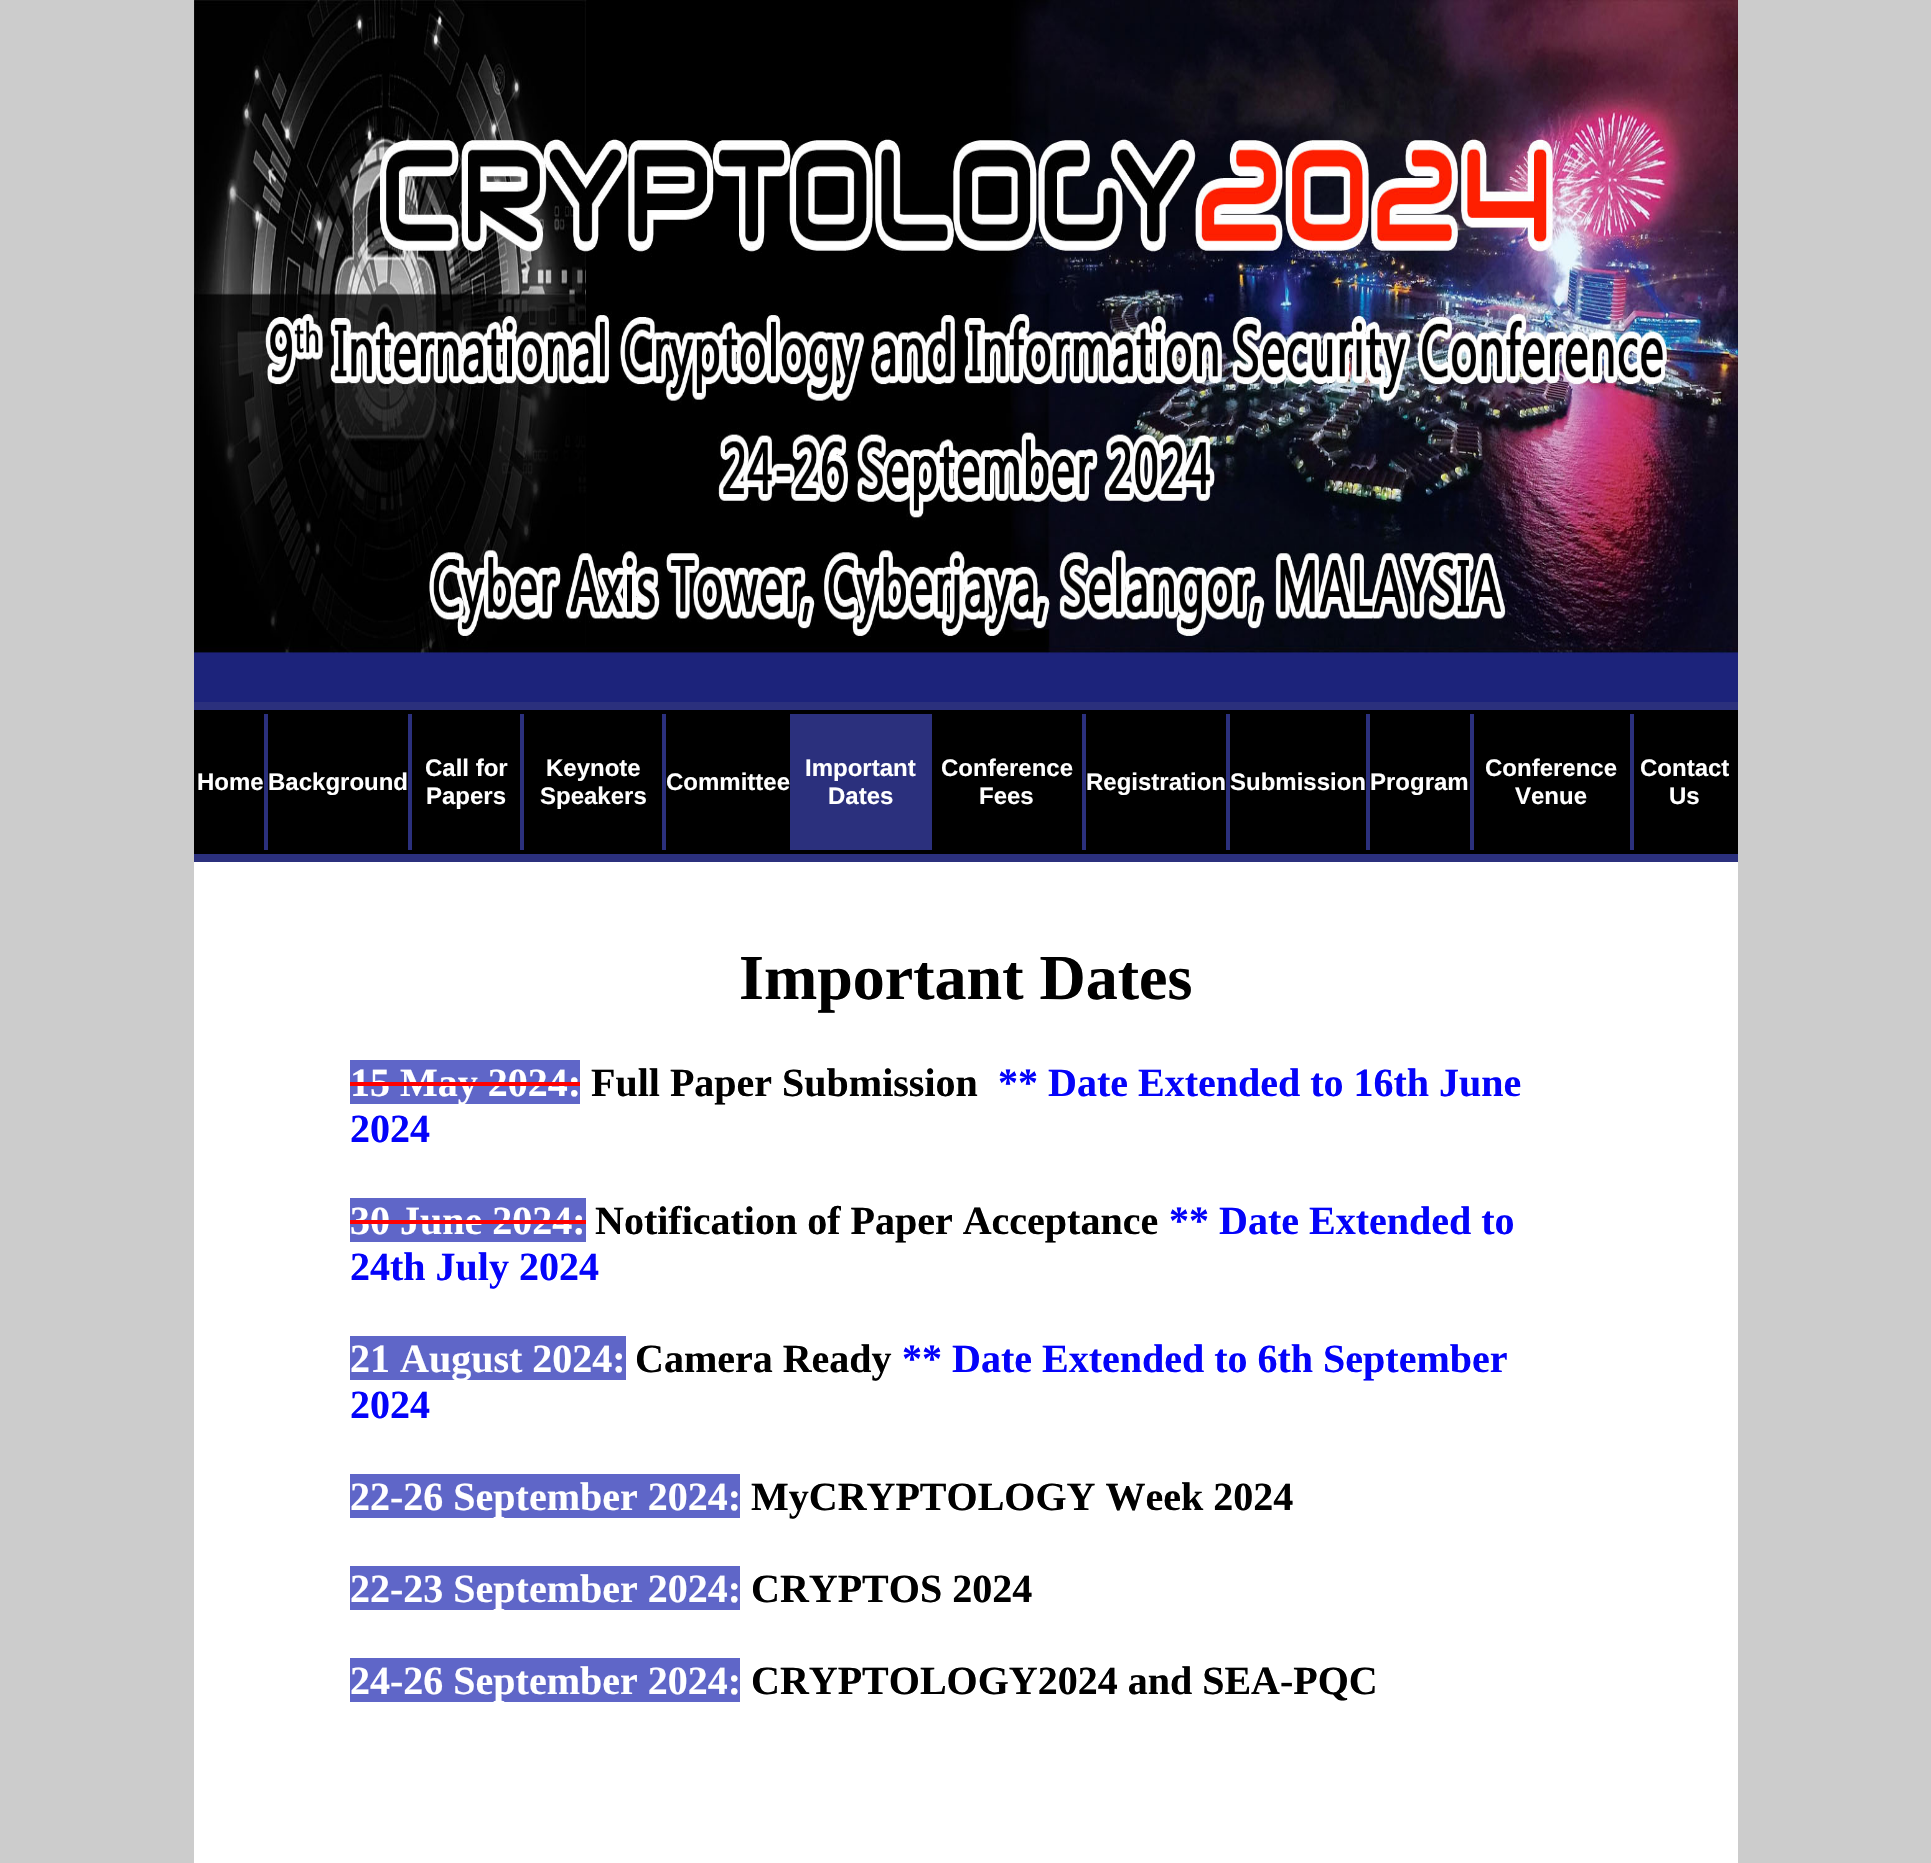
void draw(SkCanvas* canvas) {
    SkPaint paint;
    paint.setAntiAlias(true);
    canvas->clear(0xFFCCCCCC);
    paint.setColor(0xFFFFFFFF);
    canvas->drawRect(SkRect::MakeXYWH(194, 862, 1544, 1001), paint);
    canvas->drawImageRect(SkImages::DeferredFromEncodedData(SkData::MakeFromFileName("img1.png")), SkRect::MakeXYWH(194, 0, 1544, 702), SkSamplingOptions());
    paint.setColor(0xFF000000);
    canvas->drawRect(SkRect::MakeXYWH(194, 710, 1544, 144), paint);
    paint.setColor(0xFF2B307D);
    canvas->drawRect(SkRect::MakeXYWH(194, 702, 1544, 8), paint);
    canvas->drawRect(SkRect::MakeXYWH(194, 854, 1544, 8), paint);
    canvas->drawRect(SkRect::MakeXYWH(264, 714, 1370, 136), paint);
    SkFont font1(fontMgr->matchFamilyStyle("Liberation Sans", SkFontStyle::Bold()), 24);
    font1.setSubpixel(true);
    paint.setColor(0xFFFFFFFF);
    canvas->drawString("Home", 197, 790, font1, paint);
    paint.setColor(0xFF000000);
    canvas->drawRect(SkRect::MakeXYWH(268, 714, 140, 136), paint);
    paint.setColor(0xFFFFFFFF);
    canvas->drawString("Background", 268, 790, font1, paint);
    paint.setColor(0xFF000000);
    canvas->drawRect(SkRect::MakeXYWH(412, 714, 108, 136), paint);
    paint.setColor(0xFFFFFFFF);
    canvas->drawString("Call for", 425, 776, font1, paint);
    canvas->drawString("Papers", 426, 804, font1, paint);
    paint.setColor(0xFF000000);
    canvas->drawRect(SkRect::MakeXYWH(524, 714, 138, 136), paint);
    paint.setColor(0xFFFFFFFF);
    canvas->drawString("Keynote", 546, 776, font1, paint);
    canvas->drawString("Speakers", 540, 804, font1, paint);
    paint.setColor(0xFF000000);
    canvas->drawRect(SkRect::MakeXYWH(666, 714, 124, 136), paint);
    paint.setColor(0xFFFFFFFF);
    canvas->drawString("Committee", 666, 790, font1, paint);
    canvas->drawString("Important", 805, 776, font1, paint);
    canvas->drawString("Dates", 828, 804, font1, paint);
    paint.setColor(0xFF000000);
    canvas->drawRect(SkRect::MakeXYWH(932, 714, 150, 136), paint);
    paint.setColor(0xFFFFFFFF);
    canvas->drawString("Conference", 941, 776, font1, paint);
    canvas->drawString("Fees", 979, 804, font1, paint);
    paint.setColor(0xFF000000);
    canvas->drawRect(SkRect::MakeXYWH(1086, 714, 140, 136), paint);
    paint.setColor(0xFFFFFFFF);
    canvas->drawString("Registration", 1086, 790, font1, paint);
    paint.setColor(0xFF000000);
    canvas->drawRect(SkRect::MakeXYWH(1230, 714, 136, 136), paint);
    paint.setColor(0xFFFFFFFF);
    canvas->drawString("Submission", 1230, 790, font1, paint);
    paint.setColor(0xFF000000);
    canvas->drawRect(SkRect::MakeXYWH(1370, 714, 100, 136), paint);
    paint.setColor(0xFFFFFFFF);
    canvas->drawString("Program", 1370, 790, font1, paint);
    paint.setColor(0xFF000000);
    canvas->drawRect(SkRect::MakeXYWH(1474, 714, 156, 136), paint);
    paint.setColor(0xFFFFFFFF);
    canvas->drawString("Conference", 1485, 776, font1, paint);
    canvas->drawString("Venue", 1515, 804, font1, paint);
    canvas->drawString("Contact", 1640, 776, font1, paint);
    canvas->drawString("Us", 1669, 804, font1, paint);
    SkFont font2(fontMgr->matchFamilyStyle("Liberation Serif", SkFontStyle::Bold()), 64);
    font2.setSubpixel(true);
    paint.setColor(0xFF000000);
    canvas->drawString("Important Dates", 739, 999, font2, paint);
    paint.setColor(0xFF5F66C8);
    canvas->drawRect(SkRect::MakeXYWH(350, 1060, 230, 44), paint);
    SkFont font3(fontMgr->matchFamilyStyle("Liberation Serif", SkFontStyle::Bold()), 40);
    font3.setSubpixel(true);
    paint.setColor(0xFFFFFFFF);
    canvas->drawString("15 May 2024:", 350, 1096, font3, paint);
    paint.setColor(0xFFFF0000);
    canvas->drawRect(SkRect::MakeXYWH(350, 1082, 230, 4), paint);
    paint.setColor(0xFF000000);
    canvas->drawString("Full Paper Submission", 591, 1096, font3, paint);
    paint.setColor(0xFF0403F9);
    canvas->drawString("** Date Extended to 16th June", 998, 1096, font3, paint);
    canvas->drawString("2024", 350, 1142, font3, paint);
    paint.setColor(0xFF5F66C8);
    canvas->drawRect(SkRect::MakeXYWH(350, 1198, 236, 44), paint);
    paint.setColor(0xFFFFFFFF);
    canvas->drawString("30 June 2024:", 350, 1234, font3, paint);
    paint.setColor(0xFFFF0000);
    canvas->drawRect(SkRect::MakeXYWH(350, 1220, 236, 4), paint);
    paint.setColor(0xFF000000);
    canvas->drawString("Notification of Paper Acceptance", 595, 1234, font3, paint);
    paint.setColor(0xFF0403F9);
    canvas->drawString("** Date Extended to", 1169, 1234, font3, paint);
    canvas->drawString("24th July 2024", 350, 1280, font3, paint);
    paint.setColor(0xFF5F66C8);
    canvas->drawRect(SkRect::MakeXYWH(350, 1336, 276, 44), paint);
    paint.setColor(0xFFFFFFFF);
    canvas->drawString("21 August 2024:", 350, 1372, font3, paint);
    paint.setColor(0xFF000000);
    canvas->drawString("Camera Ready", 635, 1372, font3, paint);
    paint.setColor(0xFF0403F9);
    canvas->drawString("** Date Extended to 6th September", 902, 1372, font3, paint);
    canvas->drawString("2024", 350, 1418, font3, paint);
    paint.setColor(0xFF5F66C8);
    canvas->drawRect(SkRect::MakeXYWH(350, 1474, 390, 44), paint);
    paint.setColor(0xFFFFFFFF);
    canvas->drawString("22-26 September 2024:", 350, 1510, font3, paint);
    paint.setColor(0xFF000000);
    canvas->drawString("MyCRYPTOLOGY Week 2024", 751, 1510, font3, paint);
    paint.setColor(0xFF5F66C8);
    canvas->drawRect(SkRect::MakeXYWH(350, 1566, 390, 44), paint);
    paint.setColor(0xFFFFFFFF);
    canvas->drawString("22-23 September 2024:", 350, 1602, font3, paint);
    paint.setColor(0xFF000000);
    canvas->drawString("CRYPTOS 2024", 751, 1602, font3, paint);
    paint.setColor(0xFF5F66C8);
    canvas->drawRect(SkRect::MakeXYWH(350, 1658, 390, 44), paint);
    paint.setColor(0xFFFFFFFF);
    canvas->drawString("24-26 September 2024:", 350, 1694, font3, paint);
    paint.setColor(0xFF000000);
    canvas->drawString("CRYPTOLOGY2024 and SEA-PQC", 751, 1694, font3, paint);
}
